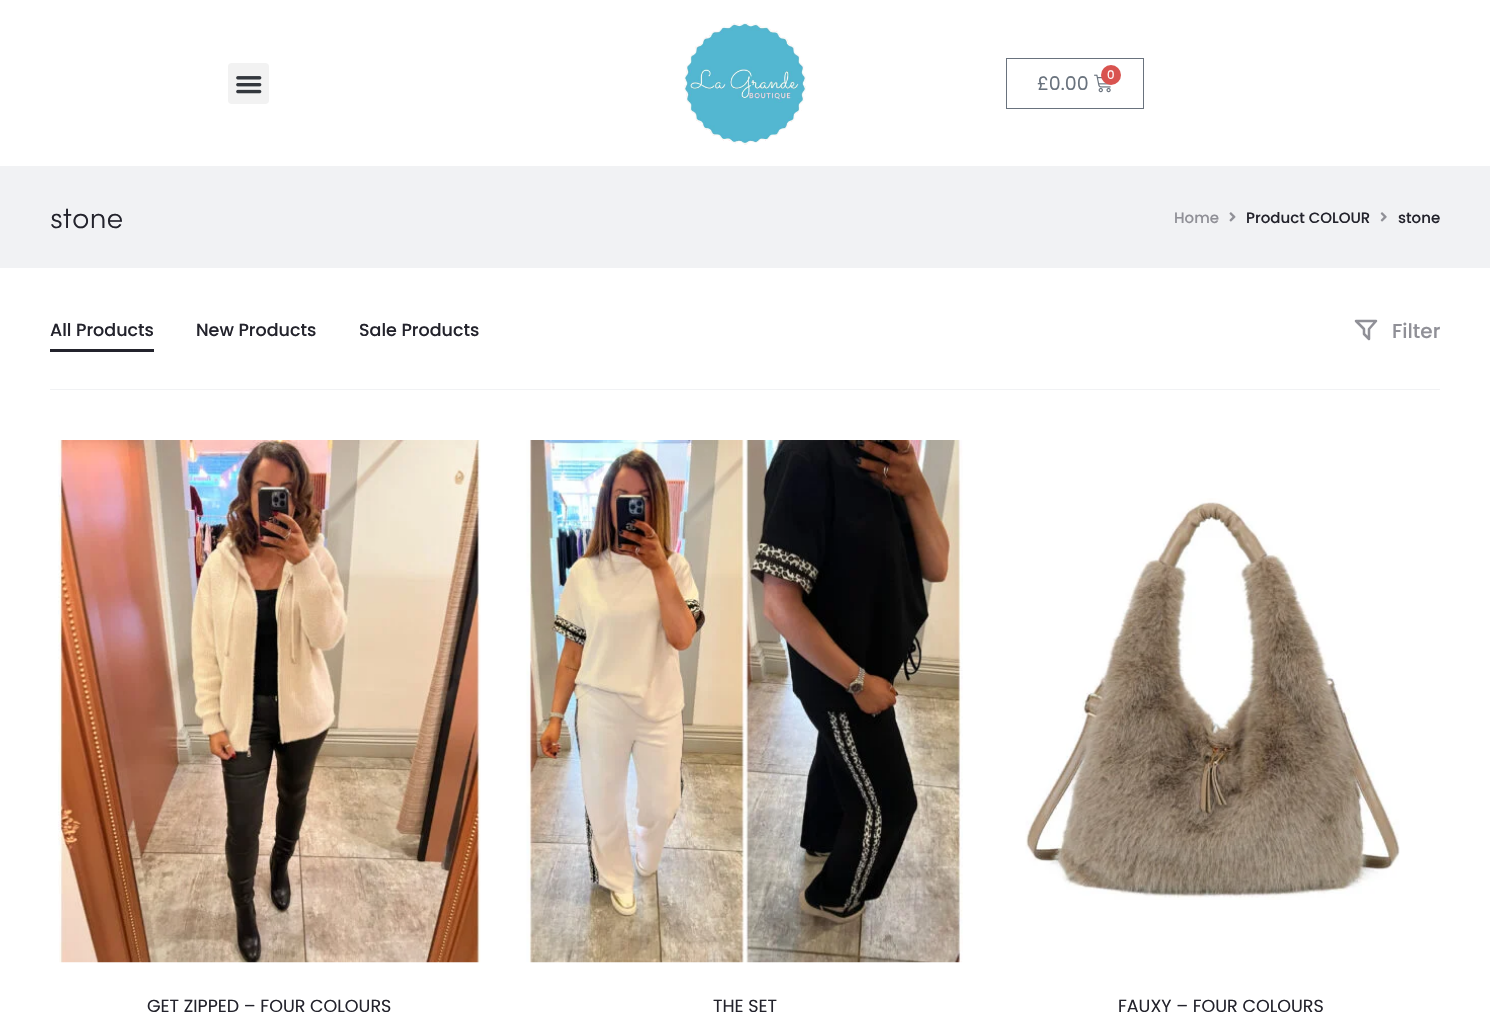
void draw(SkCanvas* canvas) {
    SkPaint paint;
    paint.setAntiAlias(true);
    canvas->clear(0xFFFFFFFF);
    paint.setColor(0xFFF2F2F2);
    canvas->drawRoundRect(SkRect::MakeXYWH(228, 63, 41, 41), 4, 4, paint);
    canvas->drawImageRect(SkImages::DeferredFromEncodedData(SkData::MakeFromFileName("img1.png")), SkRect::MakeXYWH(236, 76, 26, 18), SkSamplingOptions());
    canvas->drawImageRect(SkImages::DeferredFromEncodedData(SkData::MakeFromFileName("img2.png")), SkRect::MakeXYWH(684, 23, 122, 122), SkSamplingOptions());
    paint.setStyle(SkPaint::kStroke_Style);
    paint.setStrokeWidth(1);
    paint.setColor(0xFF69727D);
    canvas->drawRect(SkRect::MakeXYWH(1006.5f, 58.5f, 137, 50), paint);
    canvas->drawImageRect(SkImages::DeferredFromEncodedData(SkData::MakeFromFileName("img3.png")), SkRect::MakeXYWH(1094, 74, 17, 19), SkSamplingOptions());
    paint.setStyle(SkPaint::kFill_Style);
    paint.setColor(0xFFD9534F);
    canvas->drawCircle(1111, 75, 10, paint);
    SkFont font1(fontMgr->matchFamilyStyle("Poppins", SkFontStyle::Normal()), 12);
    font1.setSubpixel(true);
    paint.setColor(0xFFFFFFFF);
    canvas->drawString("0", 1107, 79, font1, paint);
    SkFont font2(fontMgr->matchFamilyStyle("Poppins", SkFontStyle::Normal()), 19);
    font2.setSubpixel(true);
    paint.setColor(0xFF69727D);
    canvas->drawString("£0.00", 1037, 90, font2, paint);
    paint.setColor(0xFFF1F2F4);
    canvas->drawRect(SkRect::MakeXYWH(0, 166, 1490, 102), paint);
    SkFont font3(fontMgr->matchFamilyStyle("Sofia", SkFontStyle(300, SkFontStyle::kNormal_Width, SkFontStyle::kUpright_Slant)), 30);
    font3.setSubpixel(true);
    paint.setColor(0xFF23232C);
    canvas->drawString("stone", 50, 228, font3, paint);
    SkFont font4(fontMgr->matchFamilyStyle("Poppins", SkFontStyle(500, SkFontStyle::kNormal_Width, SkFontStyle::kUpright_Slant)), 15);
    font4.setSubpixel(true);
    paint.setColor(0xFF909097);
    canvas->drawString("Home", 1174, 223, font4, paint);
    canvas->drawImageRect(SkImages::DeferredFromEncodedData(SkData::MakeFromFileName("img4.png")), SkRect::MakeXYWH(1229, 212, 7, 10), SkSamplingOptions());
    paint.setColor(0xFF23232C);
    canvas->drawString("Product COLOUR", 1246, 223, font4, paint);
    canvas->drawImageRect(SkImages::DeferredFromEncodedData(SkData::MakeFromFileName("img5.png")), SkRect::MakeXYWH(1380, 212, 7, 10), SkSamplingOptions());
    canvas->drawString("stone", 1398, 223, font4, paint);
    paint.setColor(0xFFF1F2F4);
    canvas->drawRect(SkRect::MakeXYWH(50, 389, 1390, 1), paint);
    SkFont font5(fontMgr->matchFamilyStyle("Poppins", SkFontStyle(500, SkFontStyle::kNormal_Width, SkFontStyle::kUpright_Slant)), 17.5f);
    font5.setSubpixel(true);
    paint.setColor(0xFF23232C);
    canvas->drawString("All Products", 50, 336, font5, paint);
    canvas->drawRect(SkRect::MakeXYWH(50, 349, 104, 3), paint);
    canvas->drawString("New Products", 196, 336, font5, paint);
    canvas->drawString("Sale Products", 359, 336, font5, paint);
    paint.setStyle(SkPaint::kStroke_Style);
    paint.setStrokeWidth(2.5f);
    paint.setStrokeJoin(SkPaint::kRound_Join);
    paint.setColor(0xFF909097);
    canvas->drawPath(SkPathBuilder().moveTo(1369, 329).lineTo(1369, 339).lineTo(1364, 334).lineTo(1364, 329).lineTo(1356, 321).lineTo(1376, 321).close().detach(), paint);
    SkFont font6(fontMgr->matchFamilyStyle("Poppins", SkFontStyle(500, SkFontStyle::kNormal_Width, SkFontStyle::kUpright_Slant)), 20);
    font6.setSubpixel(true);
    paint.setStyle(SkPaint::kFill_Style);
    canvas->drawString("Filter", 1392, 338, font6, paint);
    canvas->drawImageRect(SkImages::DeferredFromEncodedData(SkData::MakeFromFileName("img6.png")), SkRect::MakeXYWH(58, 440, 423, 523), SkSamplingOptions());
    SkFont font7(fontMgr->matchFamilyStyle("Poppins", SkFontStyle::Normal()), 17.5f);
    font7.setSubpixel(true);
    paint.setColor(0xFF23232C);
    canvas->drawString("GET ZIPPED – FOUR COLOURS", 147, 1012, font7, paint);
    canvas->drawImageRect(SkImages::DeferredFromEncodedData(SkData::MakeFromFileName("img7.png")), SkRect::MakeXYWH(526, 440, 437, 523), SkSamplingOptions());
    canvas->drawString("THE SET", 713, 1012, font7, paint);
    canvas->drawImageRect(SkImages::DeferredFromEncodedData(SkData::MakeFromFileName("img8.png")), SkRect::MakeXYWH(1025, 498, 375, 402), SkSamplingOptions());
    canvas->drawString("FAUXY – FOUR COLOURS", 1118, 1012, font7, paint);
}
